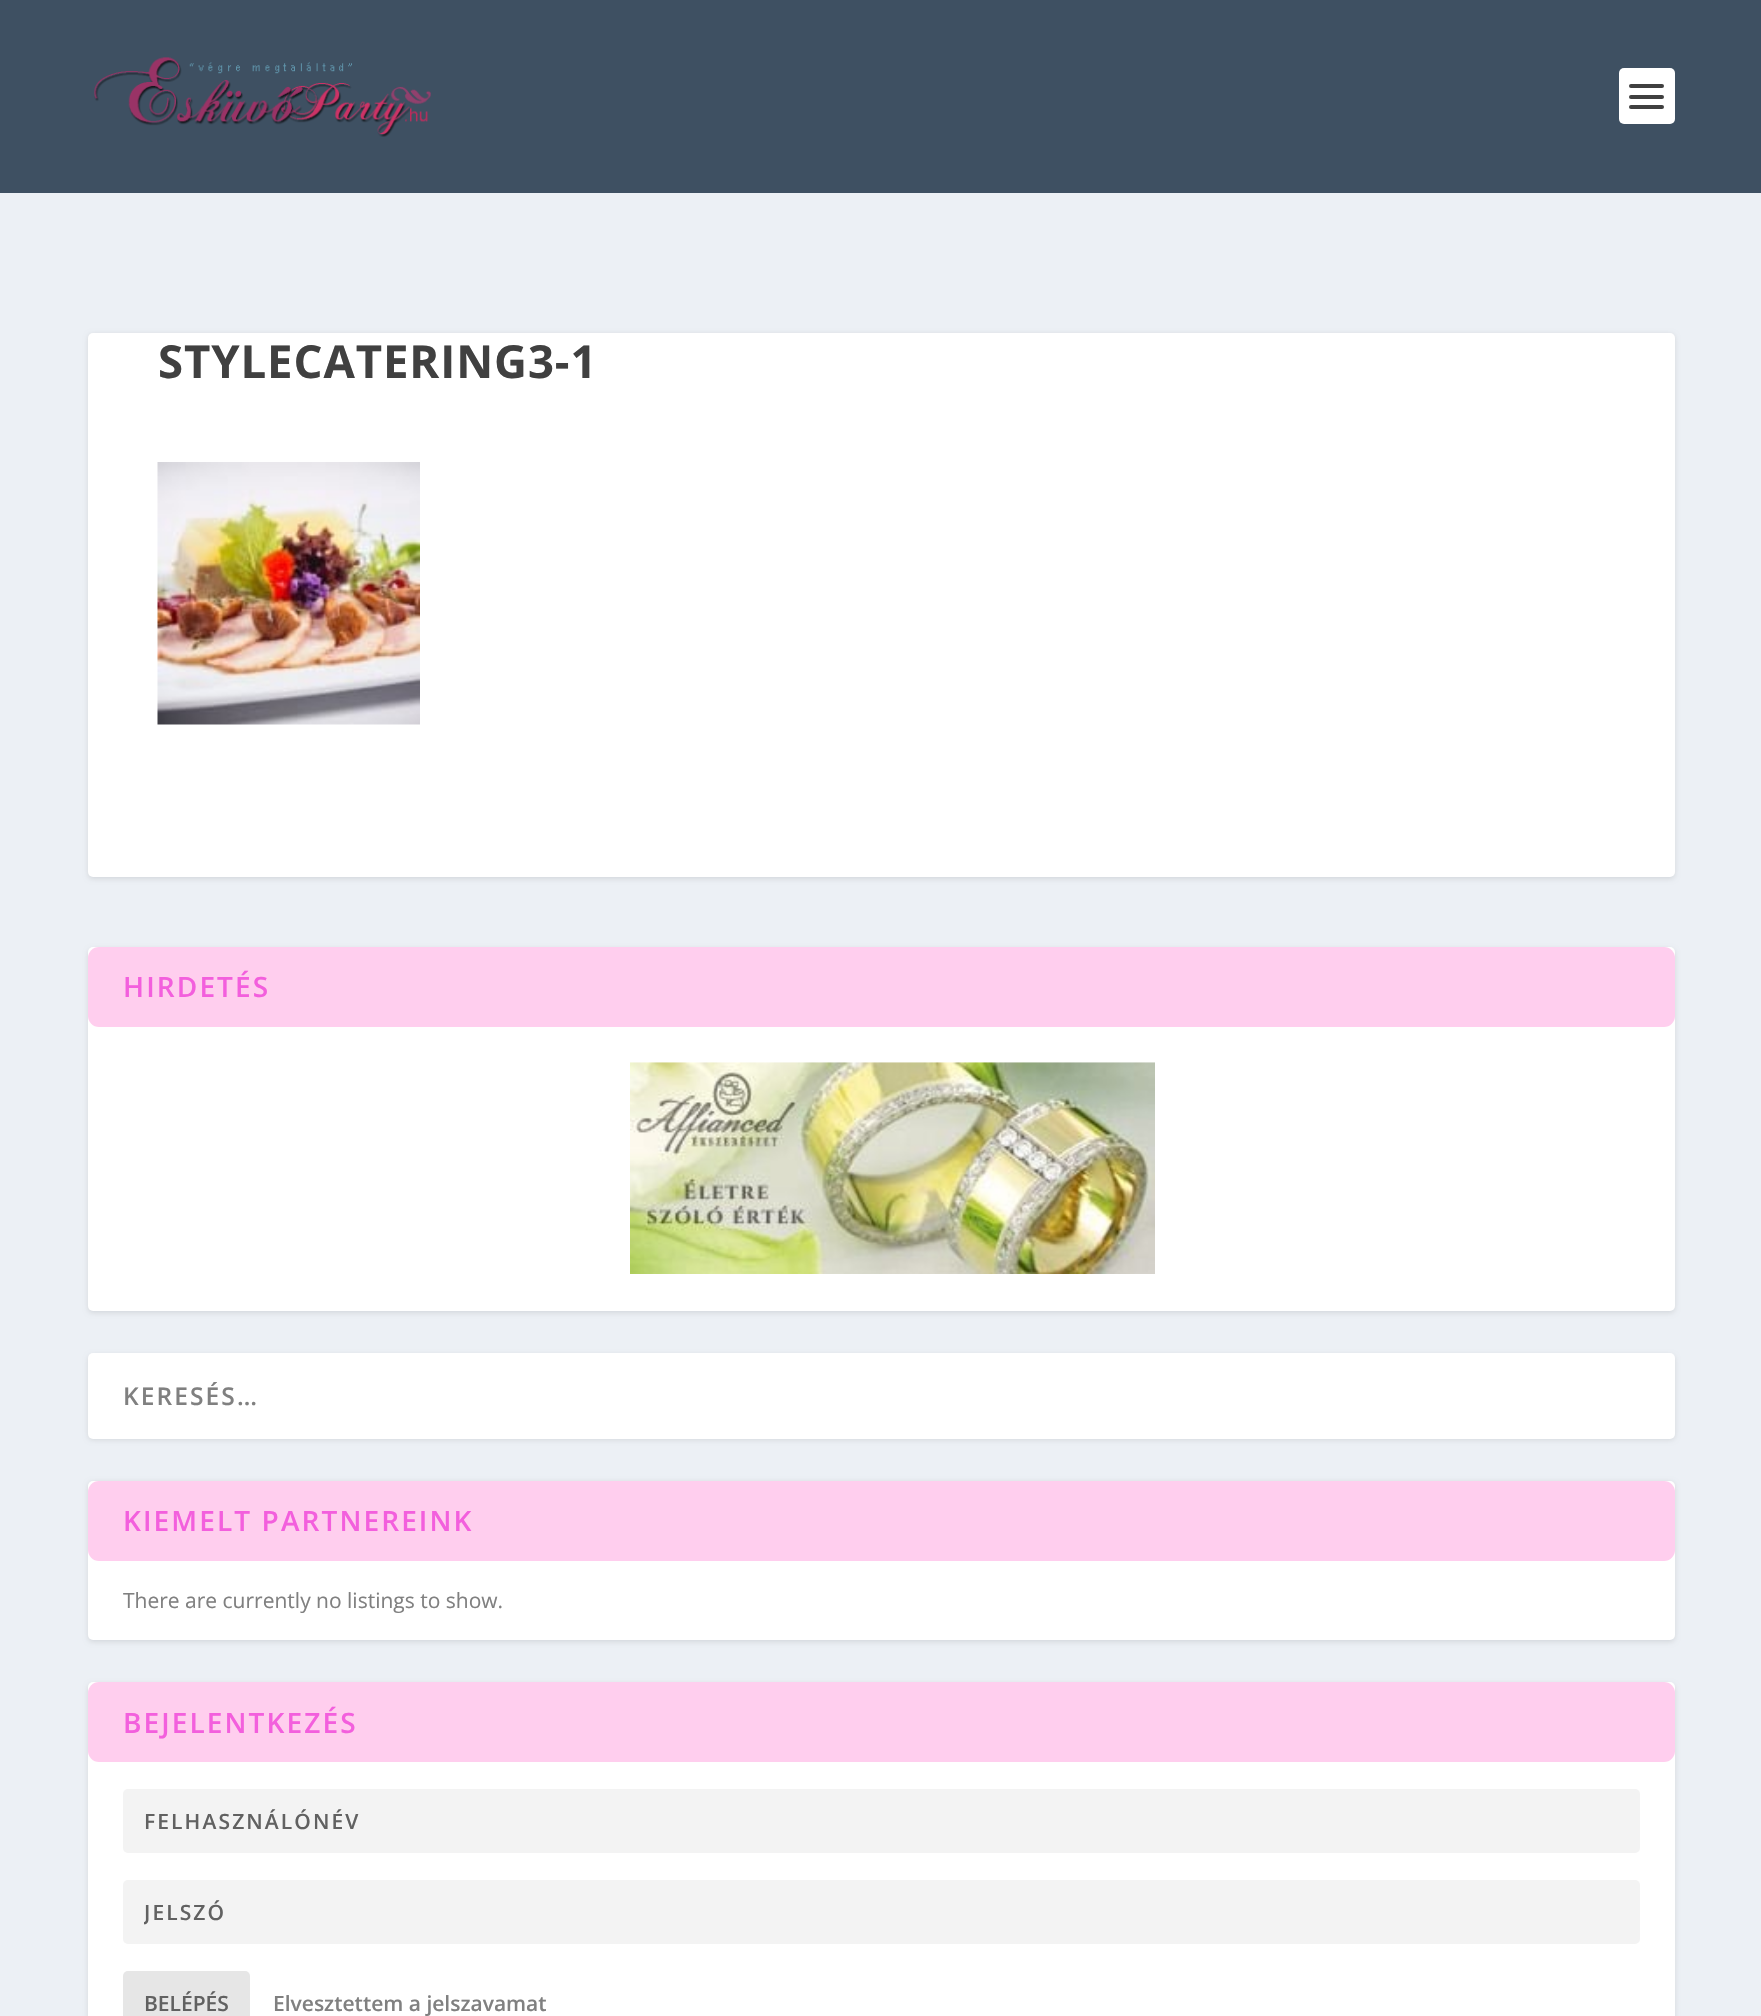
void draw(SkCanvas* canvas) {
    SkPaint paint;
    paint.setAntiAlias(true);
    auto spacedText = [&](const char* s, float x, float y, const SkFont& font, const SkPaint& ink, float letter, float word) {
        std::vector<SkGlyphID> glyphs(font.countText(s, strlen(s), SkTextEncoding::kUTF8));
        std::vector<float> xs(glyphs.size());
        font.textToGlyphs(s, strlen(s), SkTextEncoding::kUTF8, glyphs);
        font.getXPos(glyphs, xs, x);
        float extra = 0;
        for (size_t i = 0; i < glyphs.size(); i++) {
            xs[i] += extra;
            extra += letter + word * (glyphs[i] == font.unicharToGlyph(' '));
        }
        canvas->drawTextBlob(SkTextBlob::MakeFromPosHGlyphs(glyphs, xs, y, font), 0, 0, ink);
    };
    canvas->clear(0xFFECF0F5);
    paint.setColor(0xFF3E5062);
    canvas->drawRect(SkRect::MakeXYWH(0, 0, 1761, 193), paint);
    canvas->drawImageRect(SkImages::DeferredFromEncodedData(SkData::MakeFromFileName("img1.png")), SkRect::MakeXYWH(94, 57, 337, 80), SkSamplingOptions());
    paint.setColor(0xFFFFFFFF);
    canvas->drawRoundRect(SkRect::MakeXYWH(1619, 68, 56, 56), 5, 5, paint);
    paint.setColor(0xFF404040);
    canvas->drawRoundRect(SkRect::MakeXYWH(1629, 84, 35, 4), 2, 2, paint);
    canvas->drawRoundRect(SkRect::MakeXYWH(1629, 95, 35, 4), 2, 2, paint);
    canvas->drawRoundRect(SkRect::MakeXYWH(1629, 105, 35, 4), 2, 2, paint);
    paint.setColor(0x1A000000);
    paint.setMaskFilter(SkMaskFilter::MakeBlur(kNormal_SkBlurStyle, 2.5f));
    canvas->drawRoundRect(SkRect::MakeXYWH(88, 334, 1587, 545), 5, 5, paint);
    paint.setMaskFilter(nullptr);
    paint.setColor(0xFFFFFFFF);
    canvas->drawRoundRect(SkRect::MakeXYWH(88, 333, 1587, 544), 5, 5, paint);
    SkFont font1(fontMgr->matchFamilyStyle("Open Sans", SkFontStyle::Bold()), 45.5f);
    font1.setSubpixel(true);
    paint.setColor(0xFF404040);
    spacedText("STYLECATERING3-1", 158, 378, font1, paint, 0.9f, 0);
    canvas->drawImageRect(SkImages::DeferredFromEncodedData(SkData::MakeFromFileName("img2.png")), SkRect::MakeXYWH(157, 462, 263, 263), SkSamplingOptions());
    paint.setColor(0x1A000000);
    paint.setMaskFilter(SkMaskFilter::MakeBlur(kNormal_SkBlurStyle, 2.5f));
    canvas->drawRoundRect(SkRect::MakeXYWH(88, 949, 1587, 364), 5, 5, paint);
    paint.setMaskFilter(nullptr);
    paint.setColor(0xFFFFFFFF);
    canvas->drawRoundRect(SkRect::MakeXYWH(88, 947, 1587, 364), 5, 5, paint);
    paint.setColor(0xFFFFCEEE);
    canvas->drawRoundRect(SkRect::MakeXYWH(88, 947, 1587, 80), 11, 11, paint);
    SkFont font2(fontMgr->matchFamilyStyle("Open Sans", SkFontStyle(600, SkFontStyle::kNormal_Width, SkFontStyle::kUpright_Slant)), 28);
    font2.setSubpixel(true);
    paint.setColor(0xFFF35FDD);
    spacedText("HIRDETÉS", 123, 997, font2, paint, 2.1f, 0);
    canvas->drawImageRect(SkImages::DeferredFromEncodedData(SkData::MakeFromFileName("img3.png")), SkRect::MakeXYWH(630, 1062, 525, 212), SkSamplingOptions());
    paint.setColor(0x1A000000);
    paint.setMaskFilter(SkMaskFilter::MakeBlur(kNormal_SkBlurStyle, 2.5f));
    canvas->drawRoundRect(SkRect::MakeXYWH(88, 1355, 1587, 85), 5, 5, paint);
    paint.setMaskFilter(nullptr);
    paint.setColor(0xFFFFFFFF);
    canvas->drawRoundRect(SkRect::MakeXYWH(88, 1353, 1587, 86), 5, 5, paint);
    SkFont font3(fontMgr->matchFamilyStyle("Open Sans", SkFontStyle(600, SkFontStyle::kNormal_Width, SkFontStyle::kUpright_Slant)), 24.5f);
    font3.setSubpixel(true);
    paint.setColor(0xFF808080);
    spacedText("KERESÉS…", 123, 1405, font3, paint, 2.1f, 0);
    paint.setColor(0x1A000000);
    paint.setMaskFilter(SkMaskFilter::MakeBlur(kNormal_SkBlurStyle, 2.5f));
    canvas->drawRoundRect(SkRect::MakeXYWH(88, 1482, 1587, 160), 5, 5, paint);
    paint.setMaskFilter(nullptr);
    paint.setColor(0xFFFFFFFF);
    canvas->drawRoundRect(SkRect::MakeXYWH(88, 1481, 1587, 159), 5, 5, paint);
    paint.setColor(0xFFFFCEEE);
    canvas->drawRoundRect(SkRect::MakeXYWH(88, 1481, 1587, 80), 11, 11, paint);
    paint.setColor(0xFFF35FDD);
    spacedText("KIEMELT PARTNEREINK", 123, 1531, font2, paint, 2.1f, 0);
    SkFont font4(fontMgr->matchFamilyStyle("Open Sans", SkFontStyle::Normal()), 21);
    font4.setSubpixel(true);
    paint.setColor(0xFF808080);
    canvas->drawString("There are currently no listings to show.", 123, 1608, font4, paint);
    paint.setColor(0x1A000000);
    paint.setMaskFilter(SkMaskFilter::MakeBlur(kNormal_SkBlurStyle, 2.5f));
    canvas->drawRoundRect(SkRect::MakeXYWH(88, 1684, 1587, 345), 5, 5, paint);
    paint.setMaskFilter(nullptr);
    paint.setColor(0xFFFFFFFF);
    canvas->drawRoundRect(SkRect::MakeXYWH(88, 1682, 1587, 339), 5, 5, paint);
    paint.setColor(0xFFFFCEEE);
    canvas->drawRoundRect(SkRect::MakeXYWH(88, 1682, 1587, 80), 11, 11, paint);
    paint.setColor(0xFFF35FDD);
    spacedText("BEJELENTKEZÉS", 123, 1733, font2, paint, 2.1f, 0);
    paint.setColor(0xFFF3F3F3);
    canvas->drawRoundRect(SkRect::MakeXYWH(123, 1789, 1517, 64), 5, 5, paint);
    SkFont font5(fontMgr->matchFamilyStyle("Open Sans", SkFontStyle(600, SkFontStyle::kNormal_Width, SkFontStyle::kUpright_Slant)), 21);
    font5.setSubpixel(true);
    paint.setColor(0xFF616161);
    spacedText("FELHASZNÁLÓNÉV", 144, 1829, font5, paint, 2.1f, 0);
    paint.setColor(0xFFF3F3F3);
    canvas->drawRoundRect(SkRect::MakeXYWH(123, 1880, 1517, 64), 5, 5, paint);
    canvas->save();
    canvas->clipRect(SkRect::MakeXYWH(144, 1897, 1475, 30));
    paint.setColor(0xFF616161);
    spacedText("JELSZÓ", 144, 1920, font5, paint, 2.1f, 0);
    canvas->restore();
    paint.setColor(0xFFE6E6E6);
    canvas->drawRoundRect(SkRect::MakeXYWH(123, 1971, 127, 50), 5, 5, paint);
    paint.setColor(0xFF616161);
    canvas->drawString("BELÉPÉS", 144, 2011, font5, paint);
    paint.setColor(0xFF808080);
    canvas->drawString("Elvesztettem a jelszavamat", 273, 2011, font5, paint);
}
